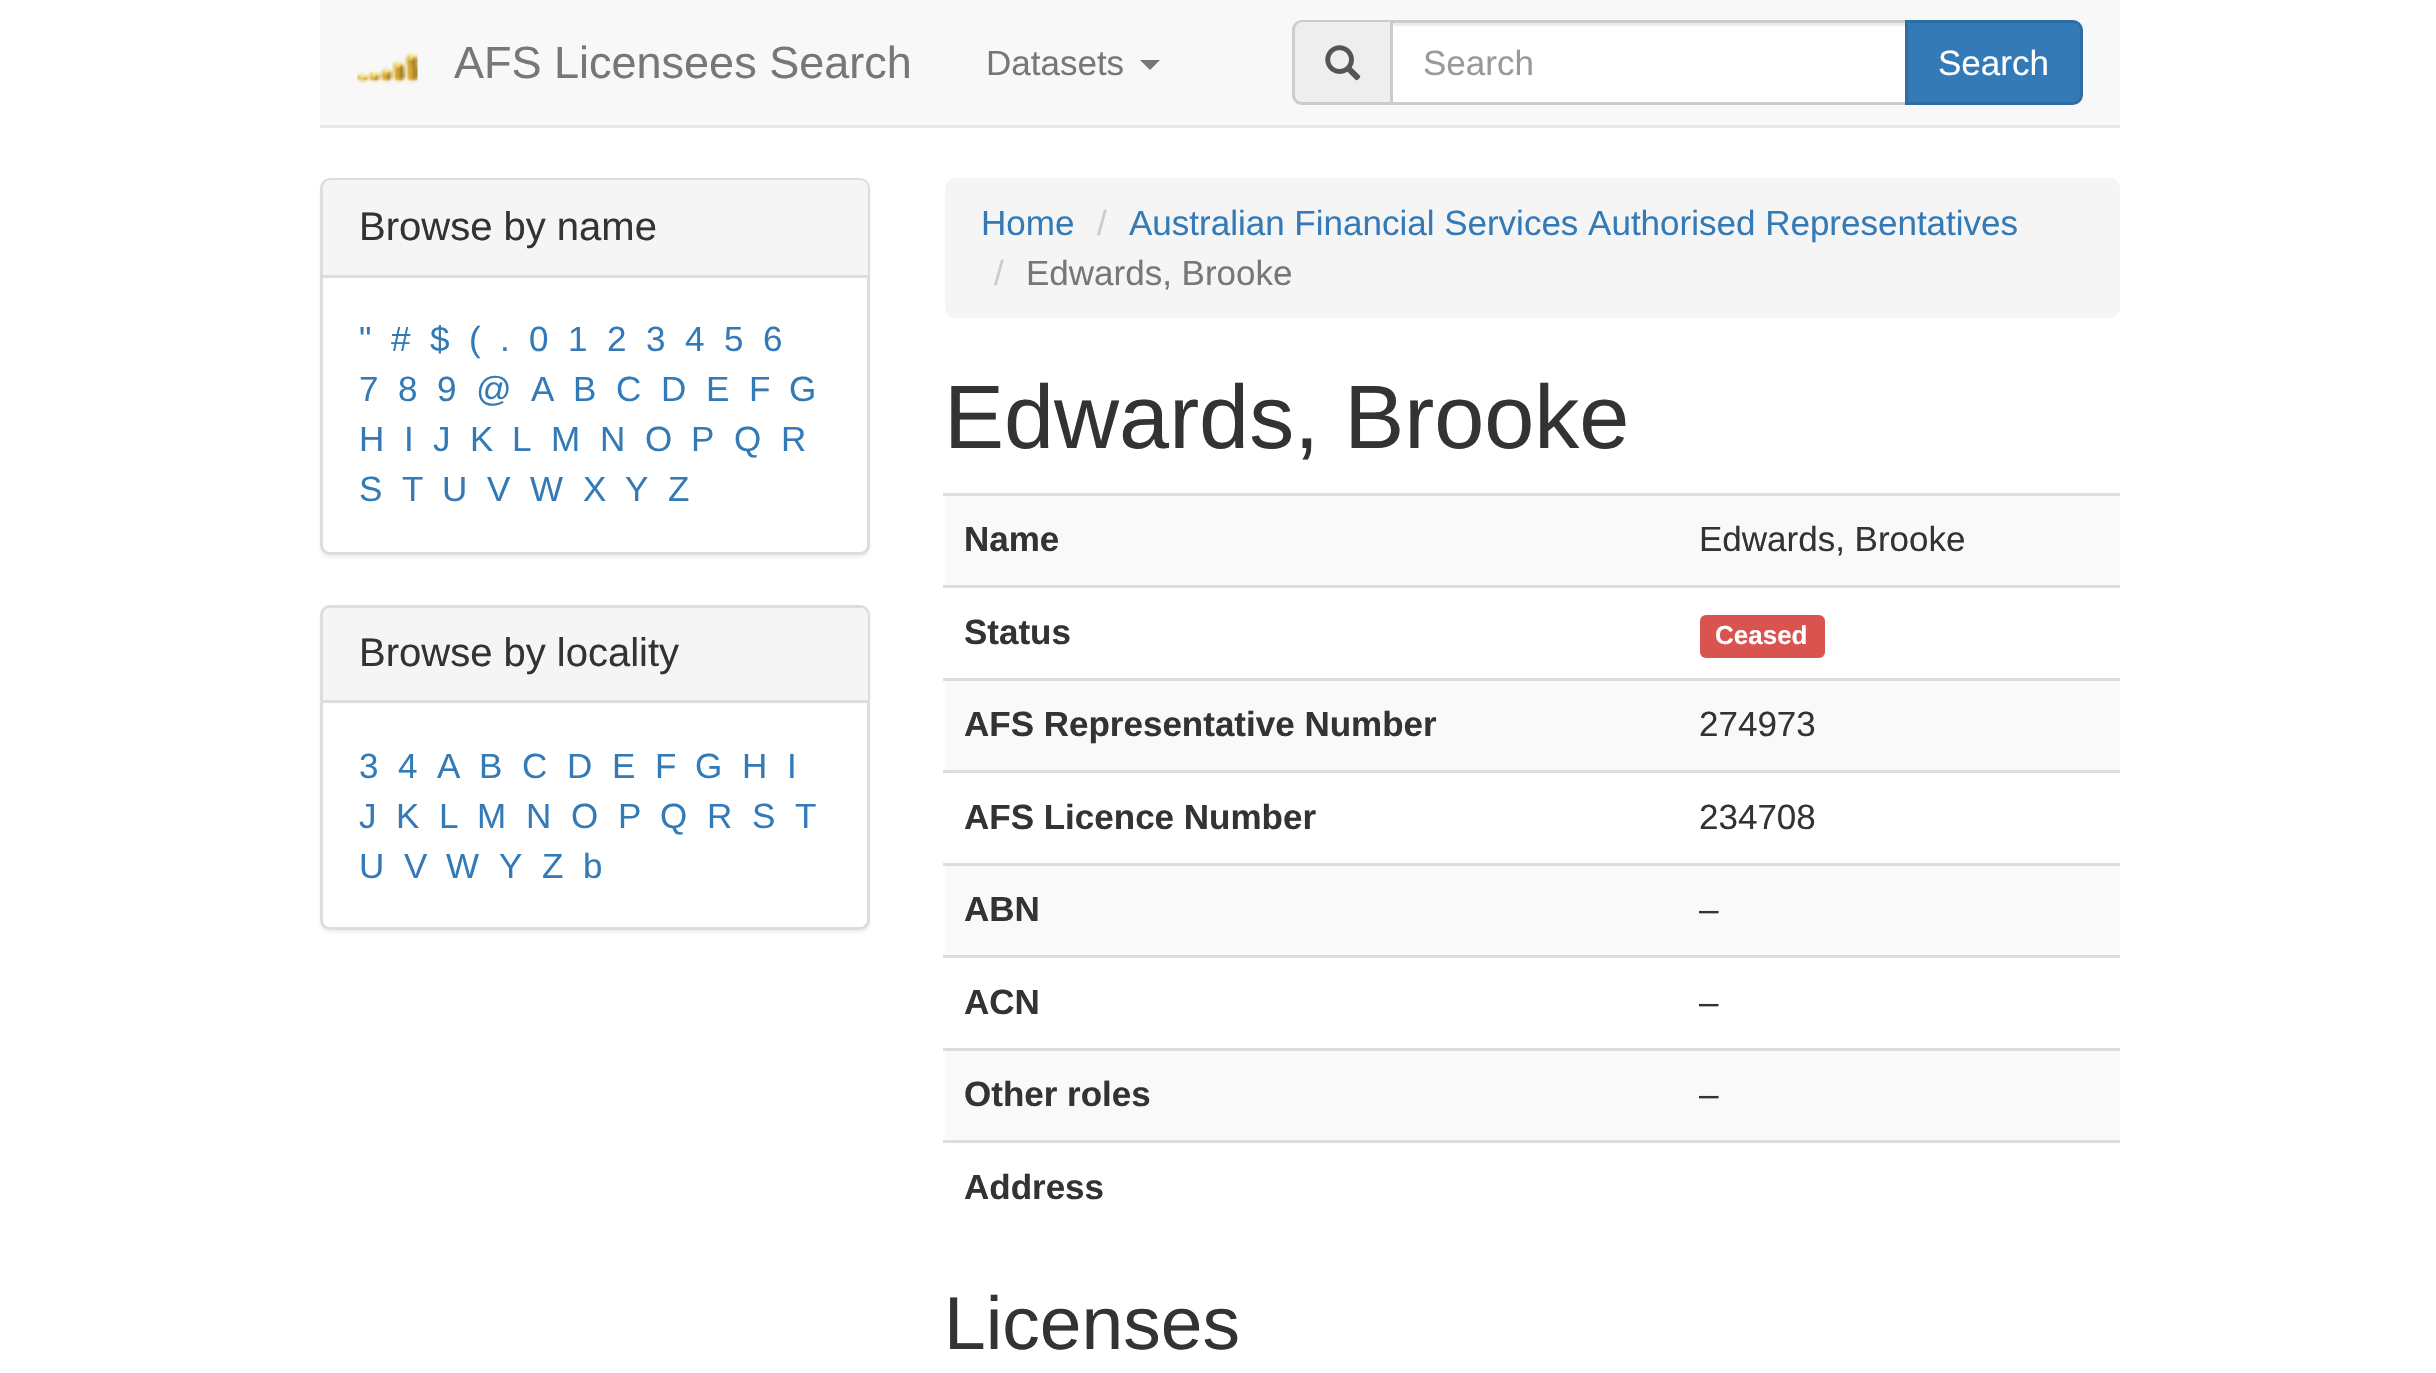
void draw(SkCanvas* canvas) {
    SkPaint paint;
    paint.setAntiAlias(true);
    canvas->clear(0xFFFFFFFF);
    paint.setColor(0xFFF8F8F8);
    canvas->drawRect(SkRect::MakeXYWH(320, 0, 1800, 125), paint);
    paint.setColor(0xFFE7E7E7);
    canvas->drawRect(SkRect::MakeXYWH(320, 125, 1800, 3), paint);
    canvas->drawImageRect(SkImages::DeferredFromEncodedData(SkData::MakeFromFileName("img1.png")), SkRect::MakeXYWH(357, 52, 61, 32), SkSamplingOptions());
    SkFont font1(fontMgr->matchFamilyStyle("Liberation Sans", SkFontStyle::Normal()), 45);
    font1.setSubpixel(true);
    paint.setColor(0xFF777777);
    canvas->drawString("AFS Licensees Search", 454, 78, font1, paint);
    SkFont font2(fontMgr->matchFamilyStyle("Liberation Sans", SkFontStyle::Normal()), 35);
    font2.setSubpixel(true);
    canvas->drawString("Datasets", 986, 75, font2, paint);
    canvas->drawPath(SkPathBuilder().moveTo(1140, 60).lineTo(1160, 60).lineTo(1150, 70).close().detach(), paint);
    paint.setColor(0xFFEEEEEE);
    canvas->drawPath(SkPathBuilder().moveTo(1303, 20).lineTo(1390, 20).lineTo(1390, 105).lineTo(1303, 105).cubicTo(1297.5f, 105, 1293, 100.5f, 1293, 95).lineTo(1293, 30).cubicTo(1293, 24.5f, 1297.5f, 20, 1303, 20).close().detach(), paint);
    paint.setColor(0xFFCCCCCC);
    canvas->drawPath(SkPathBuilder(SkPathFillType::kEvenOdd).moveTo(1302, 20).lineTo(1390, 20).lineTo(1390, 105).lineTo(1302, 105).cubicTo(1297, 105, 1292, 101, 1292, 95).lineTo(1292, 30).cubicTo(1292, 24, 1297, 20, 1302, 20).close().moveTo(1302, 22).lineTo(1390, 22).lineTo(1390, 102).lineTo(1302, 102).cubicTo(1298, 102, 1295, 99, 1295, 95).lineTo(1295, 30).cubicTo(1295, 26, 1298, 22, 1302, 22).close().detach(), paint);
    canvas->drawImageRect(SkImages::DeferredFromEncodedData(SkData::MakeFromFileName("img2.png")), SkRect::MakeXYWH(1325, 45, 36, 36), SkSamplingOptions());
    paint.setColor(0xFFFFFFFF);
    canvas->drawRect(SkRect::MakeXYWH(1393, 26, 512, 76), paint);
    paint.setColor(0xFFECECEC);
    canvas->drawRect(SkRect::MakeXYWH(1393, 23, 512, 3), paint);
    paint.setStyle(SkPaint::kStroke_Style);
    paint.setStrokeWidth(3);
    paint.setColor(0xFFCCCCCC);
    canvas->drawRect(SkRect::MakeXYWH(1391.5f, 21.5f, 515, 82), paint);
    paint.setStyle(SkPaint::kFill_Style);
    paint.setColor(0xFF999999);
    canvas->drawString("Search", 1423, 75, font2, paint);
    paint.setColor(0xFF337AB7);
    canvas->drawPath(SkPathBuilder().moveTo(1906.5f, 21.5f).lineTo(2073, 21.5f).cubicTo(2077.5f, 21.5f, 2081.5f, 25.5f, 2081.5f, 30).lineTo(2081.5f, 95).cubicTo(2081.5f, 99.5f, 2077.5f, 103.5f, 2073, 103.5f).lineTo(1906.5f, 103.5f).close().detach(), paint);
    paint.setStyle(SkPaint::kStroke_Style);
    paint.setColor(0xFF2E6DA4);
    canvas->drawPath(SkPathBuilder().moveTo(1906.5f, 21.5f).lineTo(2073, 21.5f).cubicTo(2077.5f, 21.5f, 2081.5f, 25.5f, 2081.5f, 30).lineTo(2081.5f, 95).cubicTo(2081.5f, 99.5f, 2077.5f, 103.5f, 2073, 103.5f).lineTo(1906.5f, 103.5f).close().detach(), paint);
    paint.setStyle(SkPaint::kFill_Style);
    paint.setColor(0xFFFFFFFF);
    canvas->drawString("Search", 1938, 75, font2, paint);
    paint.setColor(0x0D000000);
    paint.setMaskFilter(SkMaskFilter::MakeBlur(kNormal_SkBlurStyle, 1));
    canvas->drawRoundRect(SkRect::MakeXYWH(320, 180, 550, 378), 10, 10, paint);
    paint.setMaskFilter(nullptr);
    paint.setColor(0xFFFFFFFF);
    canvas->drawRoundRect(SkRect::MakeXYWH(321.5f, 179.5f, 547, 374), 8.5f, 8.5f, paint);
    paint.setStyle(SkPaint::kStroke_Style);
    paint.setColor(0xFFDDDDDD);
    canvas->drawRoundRect(SkRect::MakeXYWH(321.5f, 179.5f, 547, 374), 8.5f, 8.5f, paint);
    paint.setStyle(SkPaint::kFill_Style);
    paint.setColor(0xFFF5F5F5);
    canvas->drawPath(SkPathBuilder().moveTo(331, 180).lineTo(860, 180).cubicTo(864.5f, 180, 868, 183.5f, 868, 188).lineTo(868, 278).lineTo(323, 278).lineTo(323, 188).cubicTo(323, 183.5f, 326.5f, 180, 331, 180).close().detach(), paint);
    paint.setColor(0xFFDDDDDD);
    canvas->drawRect(SkRect::MakeXYWH(323, 275, 545, 3), paint);
    SkFont font3(fontMgr->matchFamilyStyle("Liberation Sans", SkFontStyle::Normal()), 40);
    font3.setSubpixel(true);
    paint.setColor(0xFF333333);
    canvas->drawString("Browse by name", 359, 240, font3, paint);
    paint.setColor(0xFF337AB7);
    canvas->drawString("\"", 359, 351, font2, paint);
    canvas->drawString("#", 391, 351, font2, paint);
    canvas->drawString("$", 430, 351, font2, paint);
    canvas->drawString("(", 469, 351, font2, paint);
    canvas->drawString(".", 500, 351, font2, paint);
    canvas->drawString("0", 529, 351, font2, paint);
    canvas->drawString("1", 568, 351, font2, paint);
    canvas->drawString("2", 607, 351, font2, paint);
    canvas->drawString("3", 646, 351, font2, paint);
    canvas->drawString("4", 685, 351, font2, paint);
    canvas->drawString("5", 724, 351, font2, paint);
    canvas->drawString("6", 763, 351, font2, paint);
    canvas->drawString("7", 359, 401, font2, paint);
    canvas->drawString("8", 398, 401, font2, paint);
    canvas->drawString("9", 437, 401, font2, paint);
    canvas->drawString("@", 476, 401, font2, paint);
    canvas->drawString("A", 531, 401, font2, paint);
    canvas->drawString("B", 573, 401, font2, paint);
    canvas->drawString("C", 616, 401, font2, paint);
    canvas->drawString("D", 661, 401, font2, paint);
    canvas->drawString("E", 706, 401, font2, paint);
    canvas->drawString("F", 749, 401, font2, paint);
    canvas->drawString("G", 789, 401, font2, paint);
    canvas->drawString("H", 359, 451, font2, paint);
    canvas->drawString("I", 404, 451, font2, paint);
    canvas->drawString("J", 433, 451, font2, paint);
    canvas->drawString("K", 470, 451, font2, paint);
    canvas->drawString("L", 512, 451, font2, paint);
    canvas->drawString("M", 551, 451, font2, paint);
    canvas->drawString("N", 600, 451, font2, paint);
    canvas->drawString("O", 645, 451, font2, paint);
    canvas->drawString("P", 691, 451, font2, paint);
    canvas->drawString("Q", 734, 451, font2, paint);
    canvas->drawString("R", 781, 451, font2, paint);
    canvas->drawString("S", 359, 501, font2, paint);
    canvas->drawString("T", 402, 501, font2, paint);
    canvas->drawString("U", 442, 501, font2, paint);
    canvas->drawString("V", 487, 501, font2, paint);
    canvas->drawString("W", 530, 501, font2, paint);
    canvas->drawString("X", 583, 501, font2, paint);
    canvas->drawString("Y", 625, 501, font2, paint);
    canvas->drawString("Z", 668, 501, font2, paint);
    paint.setColor(0x0D000000);
    paint.setMaskFilter(SkMaskFilter::MakeBlur(kNormal_SkBlurStyle, 1));
    canvas->drawRoundRect(SkRect::MakeXYWH(320, 608, 550, 325), 10, 10, paint);
    paint.setMaskFilter(nullptr);
    paint.setColor(0xFFFFFFFF);
    canvas->drawRoundRect(SkRect::MakeXYWH(321.5f, 606.5f, 547, 322), 8.5f, 8.5f, paint);
    paint.setStyle(SkPaint::kStroke_Style);
    paint.setColor(0xFFDDDDDD);
    canvas->drawRoundRect(SkRect::MakeXYWH(321.5f, 606.5f, 547, 322), 8.5f, 8.5f, paint);
    paint.setStyle(SkPaint::kFill_Style);
    paint.setColor(0xFFF5F5F5);
    canvas->drawPath(SkPathBuilder().moveTo(331, 608).lineTo(860, 608).cubicTo(864.5f, 608, 868, 611.5f, 868, 616).lineTo(868, 703).lineTo(323, 703).lineTo(323, 616).cubicTo(323, 611.5f, 326.5f, 608, 331, 608).close().detach(), paint);
    paint.setColor(0xFFDDDDDD);
    canvas->drawRect(SkRect::MakeXYWH(323, 700, 545, 3), paint);
    paint.setColor(0xFF333333);
    canvas->drawString("Browse by locality", 359, 666, font3, paint);
    paint.setColor(0xFF337AB7);
    canvas->drawString("3", 359, 778, font2, paint);
    canvas->drawString("4", 398, 778, font2, paint);
    canvas->drawString("A", 437, 778, font2, paint);
    canvas->drawString("B", 479, 778, font2, paint);
    canvas->drawString("C", 522, 778, font2, paint);
    canvas->drawString("D", 567, 778, font2, paint);
    canvas->drawString("E", 612, 778, font2, paint);
    canvas->drawString("F", 655, 778, font2, paint);
    canvas->drawString("G", 695, 778, font2, paint);
    canvas->drawString("H", 742, 778, font2, paint);
    canvas->drawString("I", 787, 778, font2, paint);
    canvas->drawString("J", 359, 828, font2, paint);
    canvas->drawString("K", 396, 828, font2, paint);
    canvas->drawString("L", 439, 828, font2, paint);
    canvas->drawString("M", 477, 828, font2, paint);
    canvas->drawString("N", 526, 828, font2, paint);
    canvas->drawString("O", 571, 828, font2, paint);
    canvas->drawString("P", 618, 828, font2, paint);
    canvas->drawString("Q", 660, 828, font2, paint);
    canvas->drawString("R", 707, 828, font2, paint);
    canvas->drawString("S", 752, 828, font2, paint);
    canvas->drawString("T", 795, 828, font2, paint);
    canvas->drawString("U", 359, 878, font2, paint);
    canvas->drawString("V", 404, 878, font2, paint);
    canvas->drawString("W", 446, 878, font2, paint);
    canvas->drawString("Y", 499, 878, font2, paint);
    canvas->drawString("Z", 542, 878, font2, paint);
    canvas->drawString("b", 583, 878, font2, paint);
    paint.setColor(0xFFF5F5F5);
    canvas->drawRoundRect(SkRect::MakeXYWH(945, 178, 1175, 140), 10, 10, paint);
    paint.setColor(0xFF337AB7);
    canvas->drawString("Home", 981, 235, font2, paint);
    paint.setColor(0xFFCCCCCC);
    canvas->drawString("/", 1097, 235, font2, paint);
    paint.setColor(0xFF337AB7);
    canvas->drawString("Australian Financial Services Authorised Representatives", 1129, 235, font2, paint);
    paint.setColor(0xFFCCCCCC);
    canvas->drawString("/", 994, 285, font2, paint);
    paint.setColor(0xFF777777);
    canvas->drawString("Edwards, Brooke", 1026, 285, font2, paint);
    SkFont font4(fontMgr->matchFamilyStyle("Liberation Sans", SkFontStyle::Normal()), 90);
    font4.setSubpixel(true);
    paint.setColor(0xFF333333);
    canvas->drawString("Edwards, Brooke", 944, 448, font4, paint);
    paint.setColor(0xFFF9F9F9);
    canvas->drawRect(SkRect::MakeXYWH(945, 496, 1175, 89), paint);
    SkFont font5(fontMgr->matchFamilyStyle("Liberation Sans", SkFontStyle::Bold()), 35);
    font5.setSubpixel(true);
    paint.setColor(0xFF333333);
    canvas->drawString("Name", 964, 551, font5, paint);
    paint.setColor(0xFFDDDDDD);
    canvas->drawRect(SkRect::MakeXYWH(943, 493, 1177, 3), paint);
    paint.setColor(0xFF333333);
    canvas->drawString("Edwards, Brooke", 1699, 551, font2, paint);
    canvas->drawString("Status", 964, 644, font5, paint);
    paint.setColor(0xFFDDDDDD);
    canvas->drawRect(SkRect::MakeXYWH(943, 585, 1177, 3), paint);
    paint.setColor(0xFFD9534F);
    canvas->drawRoundRect(SkRect::MakeXYWH(1700, 615, 125, 43), 6, 6, paint);
    SkFont font6(fontMgr->matchFamilyStyle("Liberation Sans", SkFontStyle::Bold()), 26);
    font6.setSubpixel(true);
    paint.setColor(0xFFFFFFFF);
    canvas->drawString("Ceased", 1715, 644, font6, paint);
    paint.setColor(0xFFF9F9F9);
    canvas->drawRect(SkRect::MakeXYWH(945, 681, 1175, 89), paint);
    paint.setColor(0xFF333333);
    canvas->drawString("AFS Representative Number", 964, 736, font5, paint);
    paint.setColor(0xFFDDDDDD);
    canvas->drawRect(SkRect::MakeXYWH(943, 678, 1177, 3), paint);
    paint.setColor(0xFF333333);
    canvas->drawString("274973", 1699, 736, font2, paint);
    canvas->drawString("AFS Licence Number", 964, 829, font5, paint);
    paint.setColor(0xFFDDDDDD);
    canvas->drawRect(SkRect::MakeXYWH(943, 770, 1177, 3), paint);
    paint.setColor(0xFF333333);
    canvas->drawString("234708", 1699, 829, font2, paint);
    paint.setColor(0xFFF9F9F9);
    canvas->drawRect(SkRect::MakeXYWH(945, 866, 1175, 89), paint);
    paint.setColor(0xFF333333);
    canvas->drawString("ABN", 964, 921, font5, paint);
    paint.setColor(0xFFDDDDDD);
    canvas->drawRect(SkRect::MakeXYWH(943, 863, 1177, 3), paint);
    paint.setColor(0xFF333333);
    canvas->drawString("–", 1699, 921, font2, paint);
    canvas->drawString("ACN", 964, 1014, font5, paint);
    paint.setColor(0xFFDDDDDD);
    canvas->drawRect(SkRect::MakeXYWH(943, 955, 1177, 3), paint);
    paint.setColor(0xFF333333);
    canvas->drawString("–", 1699, 1014, font2, paint);
    paint.setColor(0xFFF9F9F9);
    canvas->drawRect(SkRect::MakeXYWH(945, 1051, 1175, 89), paint);
    paint.setColor(0xFF333333);
    canvas->drawString("Other roles", 964, 1106, font5, paint);
    paint.setColor(0xFFDDDDDD);
    canvas->drawRect(SkRect::MakeXYWH(943, 1048, 1177, 3), paint);
    paint.setColor(0xFF333333);
    canvas->drawString("–", 1699, 1106, font2, paint);
    paint.setColor(0xFFDDDDDD);
    canvas->drawRect(SkRect::MakeXYWH(943, 1140, 1177, 3), paint);
    paint.setColor(0xFF333333);
    canvas->drawString("Address", 964, 1199, font5, paint);
    SkFont font7(fontMgr->matchFamilyStyle("Liberation Sans", SkFontStyle::Normal()), 75);
    font7.setSubpixel(true);
    canvas->drawString("Licenses", 944, 1349, font7, paint);
}
